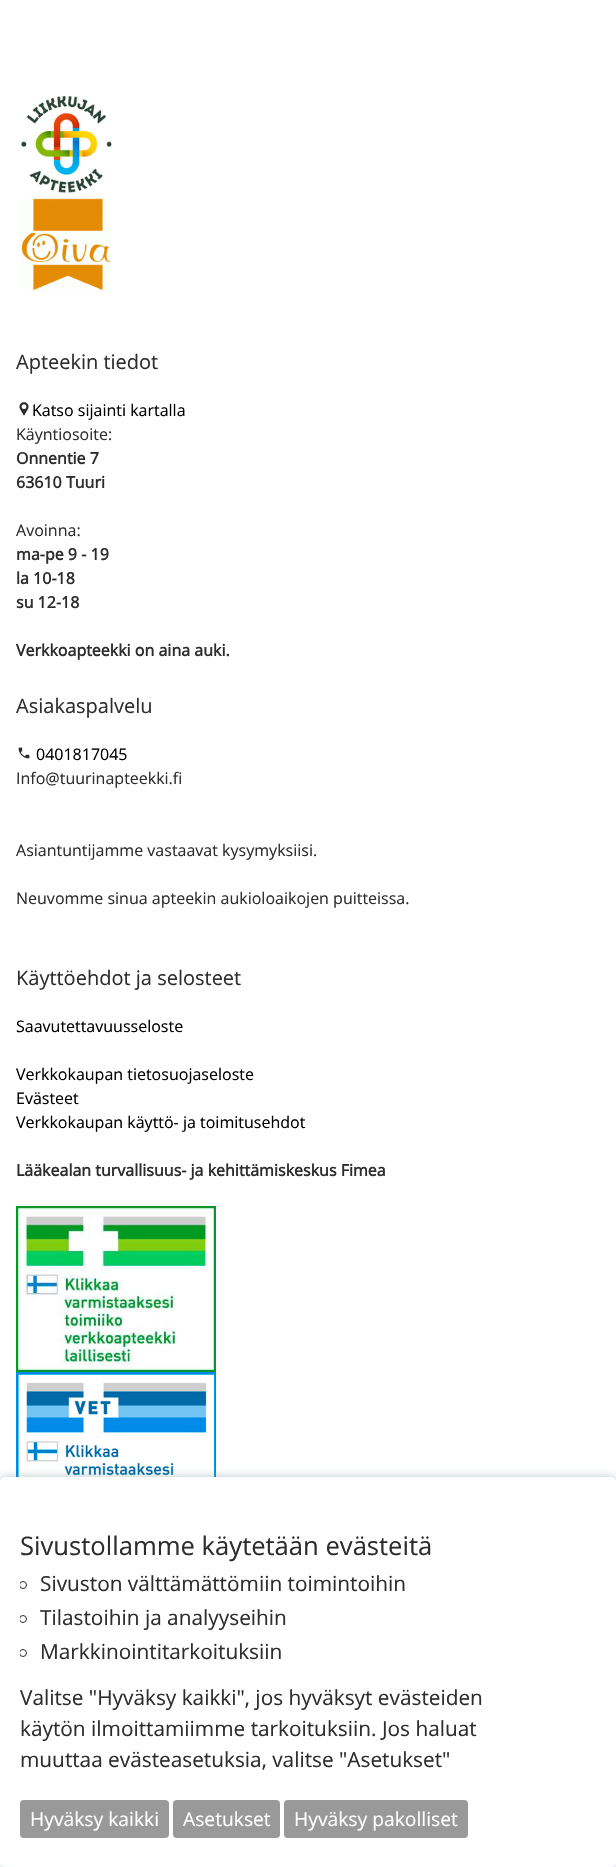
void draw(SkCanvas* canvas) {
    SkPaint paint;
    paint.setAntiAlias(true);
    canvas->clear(0xFFFFFFFF);
    canvas->drawImageRect(SkImages::DeferredFromEncodedData(SkData::MakeFromFileName("img1.png")), SkRect::MakeXYWH(21, 96, 91, 97), SkSamplingOptions());
    canvas->drawImageRect(SkImages::DeferredFromEncodedData(SkData::MakeFromFileName("img2.png")), SkRect::MakeXYWH(21, 198, 90, 92), SkSamplingOptions());
    SkFont font1(fontMgr->matchFamilyStyle("Open Sans", SkFontStyle::Normal()), 20);
    font1.setSubpixel(true);
    paint.setColor(0xFF2D2D2D);
    canvas->drawString("Apteekin tiedot", 16, 369, font1, paint);
    canvas->drawImageRect(SkImages::DeferredFromEncodedData(SkData::MakeFromFileName("img3.png")), SkRect::MakeXYWH(19, 402, 10, 14), SkSamplingOptions());
    SkFont font2(fontMgr->matchFamilyStyle("Open Sans", SkFontStyle::Normal()), 16);
    font2.setSubpixel(true);
    paint.setColor(0xFF000000);
    canvas->drawString("Katso sijainti kartalla", 32, 416, font2, paint);
    paint.setColor(0xFF2D2D2D);
    canvas->drawString("Käyntiosoite:", 16, 440, font2, paint);
    SkFont font3(fontMgr->matchFamilyStyle("Open Sans", SkFontStyle::Bold()), 16);
    font3.setSubpixel(true);
    canvas->drawString("Onnentie 7", 16, 464, font3, paint);
    canvas->drawString("63610 Tuuri", 16, 488, font3, paint);
    canvas->drawString("Avoinna:", 16, 536, font2, paint);
    canvas->drawString("ma-pe 9 - 19", 16, 560, font3, paint);
    canvas->drawString("la 10-18", 16, 584, font3, paint);
    canvas->drawString("su 12-18", 16, 608, font3, paint);
    canvas->drawString("Verkkoapteekki on aina auki.", 16, 656, font3, paint);
    canvas->drawString("Asiakaspalvelu", 16, 713, font1, paint);
    canvas->drawImageRect(SkImages::DeferredFromEncodedData(SkData::MakeFromFileName("img4.png")), SkRect::MakeXYWH(18, 747, 12, 12), SkSamplingOptions());
    paint.setColor(0xFF000000);
    canvas->drawString("0401817045", 36, 760, font2, paint);
    paint.setColor(0xFF2D2D2D);
    canvas->drawString("Info@tuurinapteekki.fi", 16, 784, font2, paint);
    canvas->drawString("Asiantuntijamme vastaavat kysymyksiisi.", 16, 856, font2, paint);
    canvas->drawString("Neuvomme sinua apteekin aukioloaikojen puitteissa.", 16, 904, font2, paint);
    canvas->drawString("Käyttöehdot ja selosteet", 16, 985, font1, paint);
    paint.setColor(0xFF000000);
    canvas->drawString("Saavutettavuusseloste", 16, 1032, font2, paint);
    canvas->drawString("Verkkokaupan tietosuojaseloste", 16, 1080, font2, paint);
    canvas->drawString("Evästeet", 16, 1104, font2, paint);
    canvas->drawString("Verkkokaupan käyttö- ja toimitusehdot", 16, 1128, font2, paint);
    paint.setColor(0xFF2D2D2D);
    canvas->drawString("Lääkealan turvallisuus- ja kehittämiskeskus Fimea", 16, 1176, font3, paint);
    canvas->drawImageRect(SkImages::DeferredFromEncodedData(SkData::MakeFromFileName("img5.png")), SkRect::MakeXYWH(16, 1206, 200, 166), SkSamplingOptions());
    canvas->drawImageRect(SkImages::DeferredFromEncodedData(SkData::MakeFromFileName("img6.png")), SkRect::MakeXYWH(16, 1372, 200, 105), SkSamplingOptions());
    paint.setColor(0x66547478);
    paint.setMaskFilter(SkMaskFilter::MakeBlur(kNormal_SkBlurStyle, 5));
    canvas->drawRoundRect(SkRect::MakeXYWH(0, 1477, 616, 390), 5, 5, paint);
    paint.setMaskFilter(nullptr);
    paint.setColor(0xFFFFFFFF);
    canvas->drawRoundRect(SkRect::MakeXYWH(0, 1477, 616, 390), 5, 5, paint);
    SkFont font4(fontMgr->matchFamilyStyle("Open Sans", SkFontStyle::Normal()), 25.6f);
    font4.setSubpixel(true);
    paint.setColor(0xFF2D2D2D);
    canvas->drawString("Sivustollamme käytetään evästeitä", 20, 1555, font4, paint);
    canvas->save();
    canvas->clipRect(SkRect::MakeXYWH(20, 1568, 576, 232));
    paint.setStyle(SkPaint::kStroke_Style);
    paint.setStrokeWidth(1);
    canvas->drawCircle(23, 1585, 3.5f, paint);
    canvas->restore();
    SkFont font5(fontMgr->matchFamilyStyle("Open Sans", SkFontStyle::Normal()), 20.8f);
    font5.setSubpixel(true);
    paint.setStyle(SkPaint::kFill_Style);
    canvas->drawString("Sivuston välttämättömiin toimintoihin", 40, 1591, font5, paint);
    canvas->save();
    canvas->clipRect(SkRect::MakeXYWH(20, 1568, 576, 232));
    paint.setStyle(SkPaint::kStroke_Style);
    canvas->drawCircle(23, 1619, 3.5f, paint);
    canvas->restore();
    paint.setStyle(SkPaint::kFill_Style);
    canvas->drawString("Tilastoihin ja analyyseihin", 40, 1625, font5, paint);
    canvas->save();
    canvas->clipRect(SkRect::MakeXYWH(20, 1568, 576, 232));
    paint.setStyle(SkPaint::kStroke_Style);
    canvas->drawCircle(23, 1653, 3.5f, paint);
    canvas->restore();
    paint.setStyle(SkPaint::kFill_Style);
    canvas->drawString("Markkinointitarkoituksiin", 40, 1659, font5, paint);
    canvas->drawString("Valitse \"Hyväksy kaikki\", jos hyväksyt evästeiden", 20, 1705, font5, paint);
    canvas->drawString("käytön ilmoittamiimme tarkoituksiin. Jos haluat", 20, 1736, font5, paint);
    canvas->drawString("muuttaa evästeasetuksia, valitse \"Asetukset\"", 20, 1767, font5, paint);
    paint.setColor(0xFF999999);
    canvas->drawRoundRect(SkRect::MakeXYWH(20, 1800, 149, 38), 4, 4, paint);
    SkFont font6(fontMgr->matchFamilyStyle("Open Sans", SkFontStyle::Normal()), 19.25f);
    font6.setSubpixel(true);
    paint.setColor(0xFFFFFFFF);
    canvas->drawString("Hyväksy kaikki", 30, 1826, font6, paint);
    paint.setColor(0xFF999999);
    canvas->drawRoundRect(SkRect::MakeXYWH(173, 1800, 107, 38), 4, 4, paint);
    paint.setColor(0xFFFFFFFF);
    canvas->drawString("Asetukset", 183, 1826, font6, paint);
    paint.setColor(0xFF999999);
    canvas->drawRoundRect(SkRect::MakeXYWH(284, 1800, 184, 38), 4, 4, paint);
    paint.setColor(0xFFFFFFFF);
    canvas->drawString("Hyväksy pakolliset", 294, 1826, font6, paint);
}
